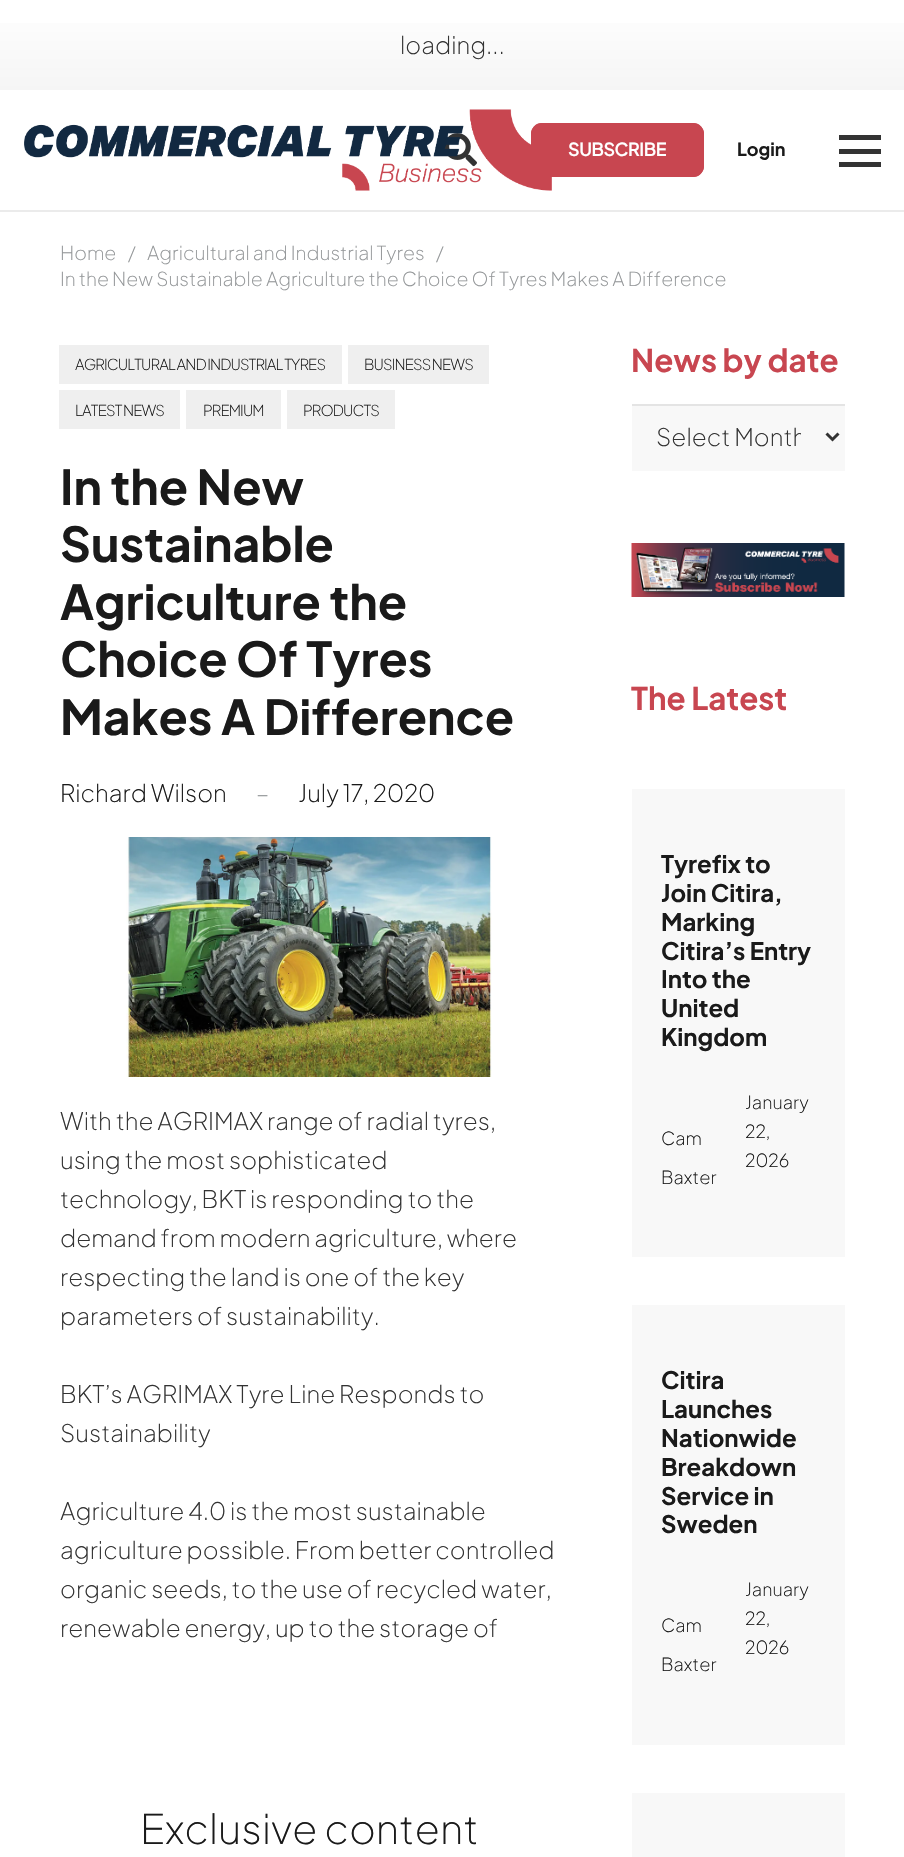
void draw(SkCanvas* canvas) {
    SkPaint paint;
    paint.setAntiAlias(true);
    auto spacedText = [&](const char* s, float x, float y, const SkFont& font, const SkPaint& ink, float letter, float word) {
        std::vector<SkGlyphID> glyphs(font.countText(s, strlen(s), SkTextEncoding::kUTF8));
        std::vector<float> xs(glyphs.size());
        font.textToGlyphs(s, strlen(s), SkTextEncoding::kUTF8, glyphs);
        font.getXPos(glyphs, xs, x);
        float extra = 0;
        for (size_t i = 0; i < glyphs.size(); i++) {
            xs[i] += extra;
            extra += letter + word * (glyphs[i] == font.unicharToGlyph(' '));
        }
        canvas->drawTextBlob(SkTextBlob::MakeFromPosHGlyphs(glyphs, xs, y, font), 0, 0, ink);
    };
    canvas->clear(0xFFFFFFFF);
    {
        const SkColor colors[] = {0xFFF5F5F5, 0xFFFFFFFF};
        const float stops[] = {0, 1};
        const SkPoint ends[] = {{452, 90}, {452, 0}};
        paint.setShader(SkGradientShader::MakeLinear(ends, colors, stops, 2, SkTileMode::kClamp));
        paint.setAlpha(255);
    }
    canvas->drawRect(SkRect::MakeXYWH(0, 23, 904, 67), paint);
    SkFont font1(fontMgr->matchFamilyStyle("Plus Jakarta Sans", SkFontStyle(200, SkFontStyle::kNormal_Width, SkFontStyle::kUpright_Slant)), 24);
    font1.setSubpixel(true);
    paint.setShader(nullptr);
    paint.setColor(0xFF333333);
    canvas->drawString("loading...", 400, 54, font1, paint);
    paint.setColor(0xFFEBEBEB);
    canvas->drawPath(SkPathBuilder().moveTo(0, 210).lineTo(0, 212).lineTo(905, 212).lineTo(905, 92).lineTo(904, 92).lineTo(904, 210).close().detach(), paint);
    canvas->drawImageRect(SkImages::DeferredFromEncodedData(SkData::MakeFromFileName("img2.png")), SkRect::MakeXYWH(444, 133, 33, 34), SkSamplingOptions());
    canvas->drawImageRect(SkImages::DeferredFromEncodedData(SkData::MakeFromFileName("img1.png")), SkRect::MakeXYWH(24, 109, 528, 82), SkSamplingOptions());
    paint.setColor(0xFFC84650);
    canvas->drawRoundRect(SkRect::MakeXYWH(531, 123, 173, 54), 11, 11, paint);
    paint.setStyle(SkPaint::kStroke_Style);
    paint.setStrokeWidth(2);
    canvas->drawRoundRect(SkRect::MakeXYWH(532, 124, 171, 52), 10, 10, paint);
    SkFont font2(fontMgr->matchFamilyStyle("Plus Jakarta Sans", SkFontStyle(600, SkFontStyle::kNormal_Width, SkFontStyle::kUpright_Slant)), 18);
    font2.setSubpixel(true);
    paint.setStyle(SkPaint::kFill_Style);
    paint.setColor(0xFFFFFFFF);
    spacedText("SUBSCRIBE", 568, 156, font2, paint, -0.5f, 0);
    SkFont font3(fontMgr->matchFamilyStyle("Plus Jakarta Sans", SkFontStyle::Bold()), 18);
    font3.setSubpixel(true);
    paint.setColor(0xFF1A1A1A);
    canvas->drawString("Login", 737, 156, font3, paint);
    paint.setColor(0xFF333333);
    canvas->drawRect(SkRect::MakeXYWH(839, 149, 42, 5), paint);
    canvas->drawRect(SkRect::MakeXYWH(839, 135, 42, 5), paint);
    canvas->drawRect(SkRect::MakeXYWH(839, 162, 42, 5), paint);
    SkFont font4(fontMgr->matchFamilyStyle("Plus Jakarta Sans", SkFontStyle(200, SkFontStyle::kNormal_Width, SkFontStyle::kUpright_Slant)), 19.2f);
    font4.setSubpixel(true);
    paint.setColor(0xFF949799);
    canvas->drawString("Home", 60, 260, font4, paint);
    canvas->drawString("/", 128, 260, font4, paint);
    canvas->drawString("Agricultural and Industrial Tyres", 147, 260, font4, paint);
    canvas->drawString("/", 436, 260, font4, paint);
    canvas->drawString("In the New Sustainable Agriculture the Choice Of Tyres Makes A Difference", 60, 286, font4, paint);
    paint.setColor(0xFFEFEFEF);
    canvas->drawRect(SkRect::MakeXYWH(59, 345, 283, 39), paint);
    SkFont font5(fontMgr->matchFamilyStyle("Plus Jakarta Sans", SkFontStyle(200, SkFontStyle::kNormal_Width, SkFontStyle::kUpright_Slant)), 15);
    font5.setSubpixel(true);
    paint.setColor(0xFF1A1A1A);
    spacedText("AGRICULTURAL AND INDUSTRIAL TYRES", 75, 370, font5, paint, -0.9f, 0);
    paint.setColor(0xFFEFEFEF);
    canvas->drawRect(SkRect::MakeXYWH(348, 345, 141, 39), paint);
    paint.setColor(0xFF1A1A1A);
    spacedText("BUSINESS NEWS", 364, 370, font5, paint, -0.9f, 0);
    paint.setColor(0xFFEFEFEF);
    canvas->drawRect(SkRect::MakeXYWH(59, 390, 121, 39), paint);
    paint.setColor(0xFF1A1A1A);
    spacedText("LATEST NEWS", 75, 416, font5, paint, -0.9f, 0);
    paint.setColor(0xFFEFEFEF);
    canvas->drawRect(SkRect::MakeXYWH(186, 390, 95, 39), paint);
    paint.setColor(0xFF1A1A1A);
    spacedText("PREMIUM", 203, 416, font5, paint, -0.9f, 0);
    paint.setColor(0xFFEFEFEF);
    canvas->drawRect(SkRect::MakeXYWH(287, 390, 108, 39), paint);
    paint.setColor(0xFF1A1A1A);
    spacedText("PRODUCTS", 303, 416, font5, paint, -0.9f, 0);
    SkFont font6(fontMgr->matchFamilyStyle("Plus Jakarta Sans", SkFontStyle::Bold()), 48);
    font6.setSubpixel(true);
    canvas->drawString("In the New", 60, 505, font6, paint);
    canvas->drawString("Sustainable", 60, 562, font6, paint);
    canvas->drawString("Agriculture the", 60, 620, font6, paint);
    canvas->drawString("Choice Of Tyres", 60, 677, font6, paint);
    canvas->drawString("Makes A Difference", 60, 735, font6, paint);
    canvas->drawString("Richard Wilson", 60, 802, font1, paint);
    paint.setColor(0xFF949799);
    canvas->drawString("–", 256, 802, font1, paint);
    paint.setColor(0xFF1A1A1A);
    canvas->drawString("July 17, 2020", 298, 802, font1, paint);
    canvas->drawImageRect(SkImages::DeferredFromEncodedData(SkData::MakeFromFileName("img3.png")), SkRect::MakeXYWH(126, 837, 366, 240), SkSamplingOptions());
    paint.setColor(0xFF333333);
    canvas->drawString("With the AGRIMAX range of radial tyres,", 60, 1130, font1, paint);
    canvas->drawString("using the most sophisticated", 60, 1169, font1, paint);
    canvas->drawString("technology, BKT is responding to the", 60, 1208, font1, paint);
    canvas->drawString("demand from modern agriculture, where", 60, 1247, font1, paint);
    canvas->drawString("respecting the land is one of the key", 60, 1286, font1, paint);
    canvas->drawString("parameters of sustainability.", 60, 1325, font1, paint);
    canvas->drawString("BKT’s AGRIMAX Tyre Line Responds to", 60, 1403, font1, paint);
    canvas->drawString("Sustainability", 60, 1442, font1, paint);
    canvas->drawString("Agriculture 4.0 is the most sustainable", 60, 1520, font1, paint);
    canvas->drawString("agriculture possible. From better controlled", 60, 1559, font1, paint);
    canvas->drawString("organic seeds, to the use of recycled water,", 60, 1598, font1, paint);
    canvas->drawString("renewable energy, up to the storage of", 60, 1637, font1, paint);
    SkFont font7(fontMgr->matchFamilyStyle("Plus Jakarta Sans", SkFontStyle(200, SkFontStyle::kNormal_Width, SkFontStyle::kUpright_Slant)), 40.75f);
    font7.setSubpixel(true);
    paint.setColor(0xFF1A1A1A);
    canvas->drawString("Exclusive content", 140, 1844, font7, paint);
    SkFont font8(fontMgr->matchFamilyStyle("Plus Jakarta Sans", SkFontStyle::Bold()), 31.25f);
    font8.setSubpixel(true);
    paint.setColor(0xFFC84650);
    canvas->drawString("News by date", 631, 372, font8, paint);
    paint.setColor(0xFFF8F8F8);
    canvas->drawRect(SkRect::MakeXYWH(632, 406, 213, 65), paint);
    paint.setColor(0xFFE4E4E4);
    canvas->drawRect(SkRect::MakeXYWH(632, 404, 213, 2), paint);
    paint.setStyle(SkPaint::kStroke_Style);
    paint.setStrokeWidth(3);
    paint.setColor(0xFF333333);
    canvas->drawPath(SkPathBuilder().moveTo(826.5f, 433.5f).lineTo(832.5f, 439.5f).lineTo(838.5f, 433.5f).detach(), paint);
    canvas->save();
    canvas->clipRect(SkRect::MakeXYWH(656, 420, 145, 35));
    paint.setStyle(SkPaint::kFill_Style);
    canvas->drawString("Select Month", 656, 446, font1, paint);
    canvas->restore();
    canvas->drawImageRect(SkImages::DeferredFromEncodedData(SkData::MakeFromFileName("img4.png")), SkRect::MakeXYWH(631, 543, 214, 54), SkSamplingOptions());
    paint.setColor(0xFFC84650);
    canvas->drawString("The Latest", 631, 710, font8, paint);
    paint.setColor(0xFFF8F8F8);
    canvas->drawRect(SkRect::MakeXYWH(632, 789, 213, 468), paint);
    SkFont font9(fontMgr->matchFamilyStyle("Plus Jakarta Sans", SkFontStyle::Bold()), 24);
    font9.setSubpixel(true);
    paint.setColor(0xFF1A1A1A);
    canvas->drawString("Tyrefix to", 661, 873, font9, paint);
    canvas->drawString("Join Citira,", 661, 902, font9, paint);
    canvas->drawString("Marking", 661, 931, font9, paint);
    canvas->drawString("Citira’s Entry", 661, 960, font9, paint);
    canvas->drawString("Into the", 661, 988, font9, paint);
    canvas->drawString("United", 661, 1017, font9, paint);
    canvas->drawString("Kingdom", 661, 1046, font9, paint);
    SkFont font10(fontMgr->matchFamilyStyle("Plus Jakarta Sans", SkFontStyle(200, SkFontStyle::kNormal_Width, SkFontStyle::kUpright_Slant)), 18);
    font10.setSubpixel(true);
    canvas->drawString("Cam", 661, 1145, font10, paint);
    canvas->drawString("Baxter", 661, 1184, font10, paint);
    canvas->drawString("January", 745, 1109, font10, paint);
    canvas->drawString("22,", 745, 1138, font10, paint);
    canvas->drawString("2026", 745, 1167, font10, paint);
    paint.setColor(0xFFF8F8F8);
    canvas->drawRect(SkRect::MakeXYWH(632, 1305, 213, 440), paint);
    paint.setColor(0xFF1A1A1A);
    canvas->drawString("Citira", 661, 1389, font9, paint);
    canvas->drawString("Launches", 661, 1418, font9, paint);
    canvas->drawString("Nationwide", 661, 1447, font9, paint);
    canvas->drawString("Breakdown", 661, 1476, font9, paint);
    canvas->drawString("Service in", 661, 1505, font9, paint);
    canvas->drawString("Sweden", 661, 1533, font9, paint);
    canvas->drawString("Cam", 661, 1632, font10, paint);
    canvas->drawString("Baxter", 661, 1671, font10, paint);
    canvas->drawString("January", 745, 1596, font10, paint);
    canvas->drawString("22,", 745, 1625, font10, paint);
    canvas->drawString("2026", 745, 1654, font10, paint);
    paint.setColor(0xFFF8F8F8);
    canvas->drawRect(SkRect::MakeXYWH(632, 1793, 213, 64), paint);
}
